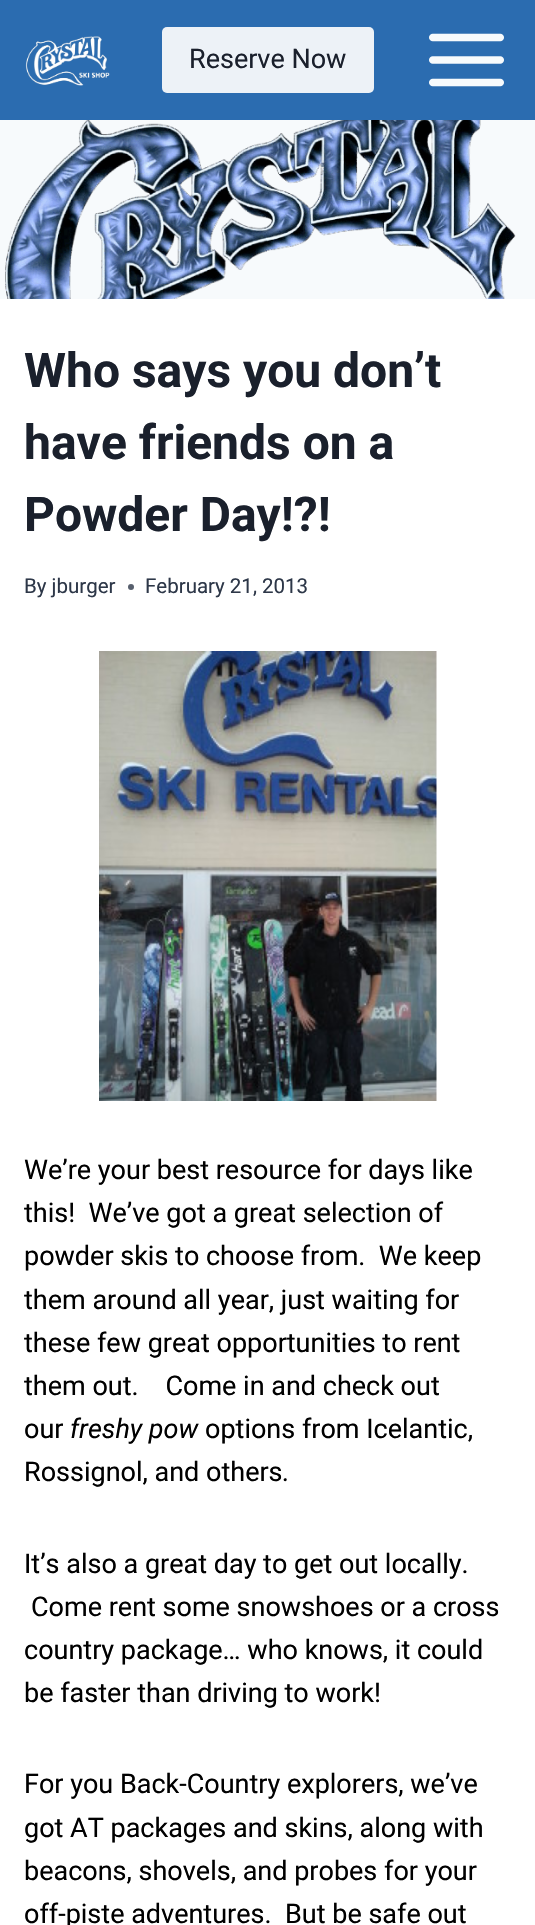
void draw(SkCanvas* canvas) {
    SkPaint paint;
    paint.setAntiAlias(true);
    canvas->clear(0xFFF7FAFC);
    paint.setColor(0xFF2B6CB0);
    canvas->drawRect(SkRect::MakeXYWH(0, 0, 535, 120), paint);
    canvas->drawImageRect(SkImages::DeferredFromEncodedData(SkData::MakeFromFileName("img1.png")), SkRect::MakeXYWH(25, 36, 85, 50), SkSamplingOptions());
    paint.setColor(0xFFEDF2F7);
    canvas->drawRoundRect(SkRect::MakeXYWH(162, 27, 212, 66), 5, 5, paint);
    SkFont font1(fontMgr->matchFamilyStyle("Roboto", SkFontStyle::Normal()), 27);
    font1.setSubpixel(true);
    paint.setColor(0xFF1A202C);
    canvas->drawString("Reserve Now", 189, 68, font1, paint);
    canvas->drawImageRect(SkImages::DeferredFromEncodedData(SkData::MakeFromFileName("img2.png")), SkRect::MakeXYWH(429, 33, 75, 54), SkSamplingOptions());
    canvas->drawImageRect(SkImages::DeferredFromEncodedData(SkData::MakeFromFileName("img3.png")), SkRect::MakeXYWH(5, 120, 511, 179), SkSamplingOptions());
    paint.setColor(0xFFFFFFFF);
    canvas->drawRect(SkRect::MakeXYWH(0, 299, 535, 1626), paint);
    SkFont font2(fontMgr->matchFamilyStyle("Roboto", SkFontStyle::Bold()), 48);
    font2.setSubpixel(true);
    paint.setColor(0xFF1A202C);
    canvas->drawString("Who says you don’t", 24, 387, font2, paint);
    canvas->drawString("have friends on a", 24, 459, font2, paint);
    canvas->drawString("Powder Day!?!", 24, 531, font2, paint);
    SkFont font3(fontMgr->matchFamilyStyle("Roboto", SkFontStyle::Normal()), 20.5f);
    font3.setSubpixel(true);
    paint.setColor(0xFF2D3748);
    canvas->drawString("By jburger", 24, 593, font3, paint);
    paint.setColor(0xFF575F6D);
    canvas->drawCircle(131, 587, 3, paint);
    paint.setColor(0xFF2D3748);
    canvas->drawString("February 21, 2013", 145, 593, font3, paint);
    canvas->drawImageRect(SkImages::DeferredFromEncodedData(SkData::MakeFromFileName("img4.png")), SkRect::MakeXYWH(99, 651, 338, 450), SkSamplingOptions());
    paint.setColor(0xFF000000);
    canvas->drawString("We’re your best resource for days like", 24, 1179, font1, paint);
    canvas->drawString("this!  We’ve got a great selection of", 24, 1222, font1, paint);
    canvas->drawString("powder skis to choose from.  We keep", 24, 1265, font1, paint);
    canvas->drawString("them around all year, just waiting for", 24, 1309, font1, paint);
    canvas->drawString("these few great opportunities to rent", 24, 1352, font1, paint);
    canvas->drawString("them out.    Come in and check out", 24, 1395, font1, paint);
    canvas->drawString("our", 24, 1438, font1, paint);
    SkFont font4(fontMgr->matchFamilyStyle("Roboto", SkFontStyle::Italic()), 27);
    font4.setSubpixel(true);
    canvas->drawString("freshy pow", 70, 1438, font4, paint);
    canvas->drawString("options from Icelantic,", 205, 1438, font1, paint);
    canvas->drawString("Rossignol, and others", 24, 1481, font1, paint);
    canvas->drawString(".", 283, 1481, font4, paint);
    canvas->drawString("It’s also a great day to get out locally.", 24, 1573, font1, paint);
    canvas->drawString("Come rent some snowshoes or a cross", 31, 1616, font1, paint);
    canvas->drawString("country package… who knows, it could", 24, 1659, font1, paint);
    canvas->drawString("be faster than driving to work!", 24, 1702, font1, paint);
    canvas->drawString("For you Back-Country explorers, we’ve", 24, 1793, font1, paint);
    canvas->drawString("got AT packages and skins, along with", 24, 1837, font1, paint);
    canvas->drawString("beacons, shovels, and probes for your", 24, 1880, font1, paint);
    canvas->drawString("off-piste adventures.  But be safe out", 24, 1923, font1, paint);
}
